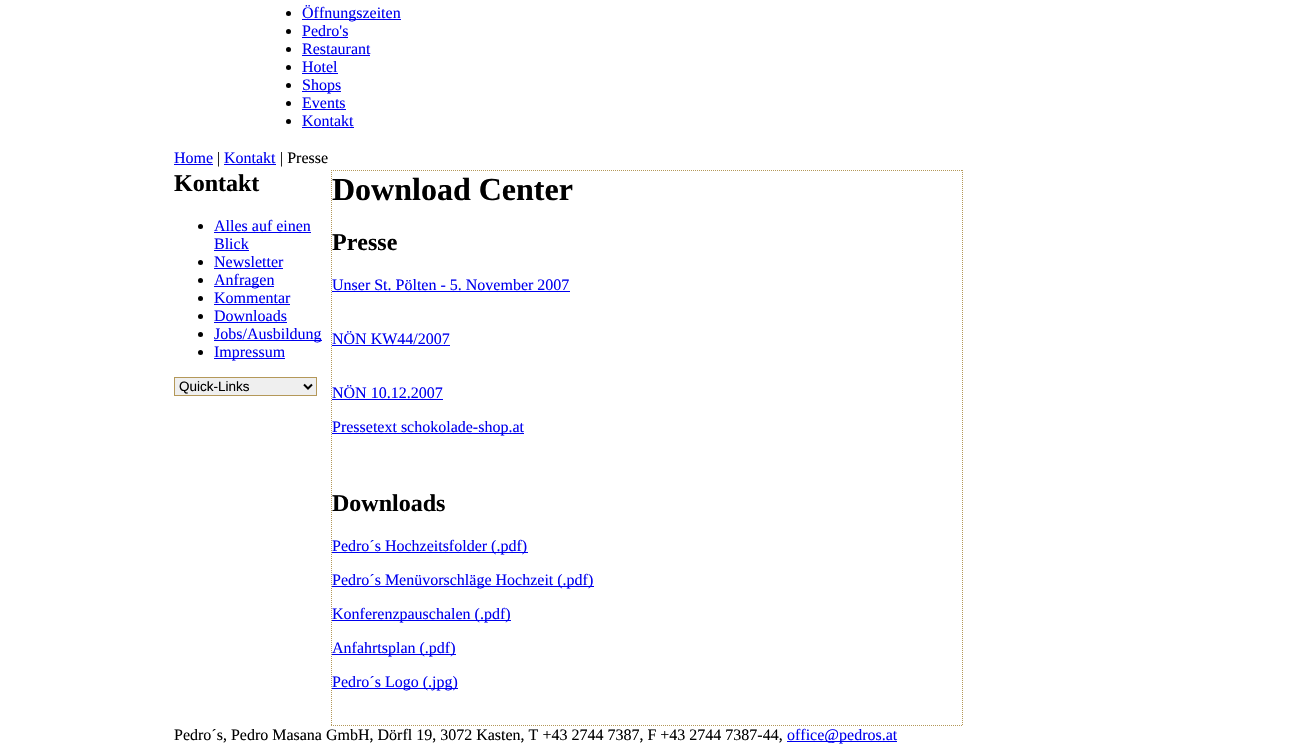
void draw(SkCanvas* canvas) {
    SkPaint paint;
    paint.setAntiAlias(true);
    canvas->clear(0xFFFFFFFF);
    paint.setColor(0xFF000000);
    canvas->drawCircle(288.5f, 13.5f, 2.5f, paint);
    paint.setColor(0xFF0000EE);
    canvas->drawRect(SkRect::MakeXYWH(302, 19, 99, 1), paint);
    SkFont font1(fontMgr->matchFamilyStyle("Liberation Serif", SkFontStyle::Normal()), 16);
    font1.setSubpixel(true);
    canvas->drawString("Öffnungszeiten", 302, 18, font1, paint);
    paint.setColor(0xFF000000);
    canvas->drawCircle(288.5f, 31.5f, 2.5f, paint);
    paint.setColor(0xFF0000EE);
    canvas->drawString("Pedro's", 302, 36, font1, paint);
    canvas->drawRect(SkRect::MakeXYWH(302, 37, 46, 1), paint);
    paint.setColor(0xFF000000);
    canvas->drawCircle(288.5f, 49.5f, 2.5f, paint);
    paint.setColor(0xFF0000EE);
    canvas->drawString("Restaurant", 302, 54, font1, paint);
    canvas->drawRect(SkRect::MakeXYWH(302, 55, 68, 1), paint);
    paint.setColor(0xFF000000);
    canvas->drawCircle(288.5f, 67.5f, 2.5f, paint);
    paint.setColor(0xFF0000EE);
    canvas->drawString("Hotel", 302, 72, font1, paint);
    canvas->drawRect(SkRect::MakeXYWH(302, 73, 36, 1), paint);
    paint.setColor(0xFF000000);
    canvas->drawCircle(288.5f, 85.5f, 2.5f, paint);
    paint.setColor(0xFF0000EE);
    canvas->drawRect(SkRect::MakeXYWH(302, 91, 39, 1), paint);
    canvas->drawString("Shops", 302, 90, font1, paint);
    paint.setColor(0xFF000000);
    canvas->drawCircle(288.5f, 103.5f, 2.5f, paint);
    paint.setColor(0xFF0000EE);
    canvas->drawString("Events", 302, 108, font1, paint);
    canvas->drawRect(SkRect::MakeXYWH(302, 109, 44, 1), paint);
    paint.setColor(0xFF000000);
    canvas->drawCircle(288.5f, 121.5f, 2.5f, paint);
    paint.setColor(0xFF0000EE);
    canvas->drawString("Kontakt", 302, 126, font1, paint);
    canvas->drawRect(SkRect::MakeXYWH(302, 127, 52, 1), paint);
    canvas->drawString("Home", 174, 163, font1, paint);
    canvas->drawRect(SkRect::MakeXYWH(174, 164, 39, 1), paint);
    paint.setColor(0xFF000000);
    canvas->drawString("|", 217, 163, font1, paint);
    paint.setColor(0xFF0000EE);
    canvas->drawString("Kontakt", 224, 163, font1, paint);
    canvas->drawRect(SkRect::MakeXYWH(224, 164, 52, 1), paint);
    paint.setColor(0xFF000000);
    canvas->drawString("| Presse", 280, 163, font1, paint);
    SkFont font2(fontMgr->matchFamilyStyle("Liberation Serif", SkFontStyle::Bold()), 24);
    font2.setSubpixel(true);
    canvas->drawString("Kontakt", 174, 191, font2, paint);
    canvas->drawCircle(200.5f, 226.5f, 2.5f, paint);
    paint.setColor(0xFF0000EE);
    canvas->drawString("Alles auf einen", 214, 231, font1, paint);
    canvas->drawRect(SkRect::MakeXYWH(214, 232, 97, 1), paint);
    canvas->drawString("Blick", 214, 249, font1, paint);
    canvas->drawRect(SkRect::MakeXYWH(214, 250, 35, 1), paint);
    paint.setColor(0xFF000000);
    canvas->drawCircle(200.5f, 262.5f, 2.5f, paint);
    paint.setColor(0xFF0000EE);
    canvas->drawString("Newsletter", 214, 267, font1, paint);
    canvas->drawRect(SkRect::MakeXYWH(214, 268, 69, 1), paint);
    paint.setColor(0xFF000000);
    canvas->drawCircle(200.5f, 280.5f, 2.5f, paint);
    paint.setColor(0xFF0000EE);
    canvas->drawRect(SkRect::MakeXYWH(214, 286, 60, 1), paint);
    canvas->drawString("Anfragen", 214, 285, font1, paint);
    paint.setColor(0xFF000000);
    canvas->drawCircle(200.5f, 298.5f, 2.5f, paint);
    paint.setColor(0xFF0000EE);
    canvas->drawString("Kommentar", 214, 303, font1, paint);
    canvas->drawRect(SkRect::MakeXYWH(214, 304, 76, 1), paint);
    paint.setColor(0xFF000000);
    canvas->drawCircle(200.5f, 316.5f, 2.5f, paint);
    paint.setColor(0xFF0000EE);
    canvas->drawString("Downloads", 214, 321, font1, paint);
    canvas->drawRect(SkRect::MakeXYWH(214, 322, 73, 1), paint);
    paint.setColor(0xFF000000);
    canvas->drawCircle(200.5f, 334.5f, 2.5f, paint);
    paint.setColor(0xFF0000EE);
    canvas->drawRect(SkRect::MakeXYWH(214, 340, 108, 1), paint);
    canvas->drawString("Jobs/Ausbildung", 214, 339, font1, paint);
    paint.setColor(0xFF000000);
    canvas->drawCircle(200.5f, 352.5f, 2.5f, paint);
    paint.setColor(0xFF0000EE);
    canvas->drawRect(SkRect::MakeXYWH(214, 358, 71, 1), paint);
    canvas->drawString("Impressum", 214, 357, font1, paint);
    paint.setColor(0xFFEFEFEF);
    canvas->drawRect(SkRect::MakeXYWH(174.5f, 377.5f, 142, 18), paint);
    paint.setStyle(SkPaint::kStroke_Style);
    paint.setStrokeWidth(1);
    paint.setColor(0xFFB49859);
    canvas->drawRect(SkRect::MakeXYWH(174.5f, 377.5f, 142, 18), paint);
    paint.setStrokeWidth(2);
    paint.setColor(0xFF000000);
    canvas->drawPath(SkPathBuilder().moveTo(304, 384.5f).lineTo(308, 388.5f).lineTo(312, 384.5f).detach(), paint);
    SkFont font3(fontMgr->matchFamilyStyle("Liberation Sans", SkFontStyle::Normal()), 13.5f);
    font3.setSubpixel(true);
    paint.setStyle(SkPaint::kFill_Style);
    canvas->drawString("Quick-Links", 179, 391, font3, paint);
    paint.setStyle(SkPaint::kStroke_Style);
    paint.setStrokeWidth(1);
    paint.setColor(0xFFB49859);
    paint.setPathEffect(SkDashPathEffect::Make({{1, 1}}, 0));
    canvas->drawPath(SkPathBuilder().moveTo(331, 170.5f).lineTo(963, 170.5f).detach(), paint);
    paint.setPathEffect(nullptr);
    paint.setPathEffect(SkDashPathEffect::Make({{1, 1}}, 0));
    canvas->drawPath(SkPathBuilder().moveTo(962.5f, 170).lineTo(962.5f, 726).detach(), paint);
    paint.setPathEffect(nullptr);
    paint.setPathEffect(SkDashPathEffect::Make({{1, 1}}, 0));
    canvas->drawPath(SkPathBuilder().moveTo(331, 725.5f).lineTo(963, 725.5f).detach(), paint);
    paint.setPathEffect(nullptr);
    paint.setPathEffect(SkDashPathEffect::Make({{1, 1}}, 0));
    canvas->drawPath(SkPathBuilder().moveTo(331.5f, 170).lineTo(331.5f, 726).detach(), paint);
    paint.setPathEffect(nullptr);
    SkFont font4(fontMgr->matchFamilyStyle("Liberation Serif", SkFontStyle::Bold()), 32);
    font4.setSubpixel(true);
    paint.setStyle(SkPaint::kFill_Style);
    paint.setColor(0xFF000000);
    canvas->drawString("Download Center", 332, 200, font4, paint);
    canvas->drawString("Presse", 332, 250, font2, paint);
    paint.setColor(0xFF0000EE);
    canvas->drawString("Unser St. Pölten - 5. November 2007", 332, 290, font1, paint);
    canvas->drawRect(SkRect::MakeXYWH(332, 291, 238, 1), paint);
    canvas->drawString("NÖN KW44/2007", 332, 344, font1, paint);
    canvas->drawRect(SkRect::MakeXYWH(332, 345, 118, 1), paint);
    canvas->drawString("NÖN 10.12.2007", 332, 398, font1, paint);
    canvas->drawRect(SkRect::MakeXYWH(332, 399, 111, 1), paint);
    canvas->drawRect(SkRect::MakeXYWH(332, 433, 192, 1), paint);
    canvas->drawString("Pressetext schokolade-shop.at", 332, 432, font1, paint);
    paint.setColor(0xFF000000);
    canvas->drawString("Downloads", 332, 511, font2, paint);
    paint.setColor(0xFF0000EE);
    canvas->drawRect(SkRect::MakeXYWH(332, 552, 196, 1), paint);
    canvas->drawString("Pedro´s Hochzeitsfolder (.pdf)", 332, 551, font1, paint);
    canvas->drawRect(SkRect::MakeXYWH(332, 586, 262, 1), paint);
    canvas->drawString("Pedro´s Menüvorschläge Hochzeit (.pdf)", 332, 585, font1, paint);
    canvas->drawRect(SkRect::MakeXYWH(332, 620, 179, 1), paint);
    canvas->drawString("Konferenzpauschalen (.pdf)", 332, 619, font1, paint);
    canvas->drawRect(SkRect::MakeXYWH(332, 654, 124, 1), paint);
    canvas->drawString("Anfahrtsplan (.pdf)", 332, 653, font1, paint);
    canvas->drawRect(SkRect::MakeXYWH(332, 688, 126, 1), paint);
    canvas->drawString("Pedro´s Logo (.jpg)", 332, 687, font1, paint);
    paint.setColor(0xFF000000);
    canvas->drawString("Pedro´s, Pedro Masana GmbH, Dörfl 19, 3072 Kasten, T +43 2744 7387, F +43 2744 7387-44,", 174, 740, font1, paint);
    paint.setColor(0xFF0000EE);
    canvas->drawRect(SkRect::MakeXYWH(787, 741, 110, 1), paint);
    canvas->drawString("office@pedros.at", 787, 740, font1, paint);
}
